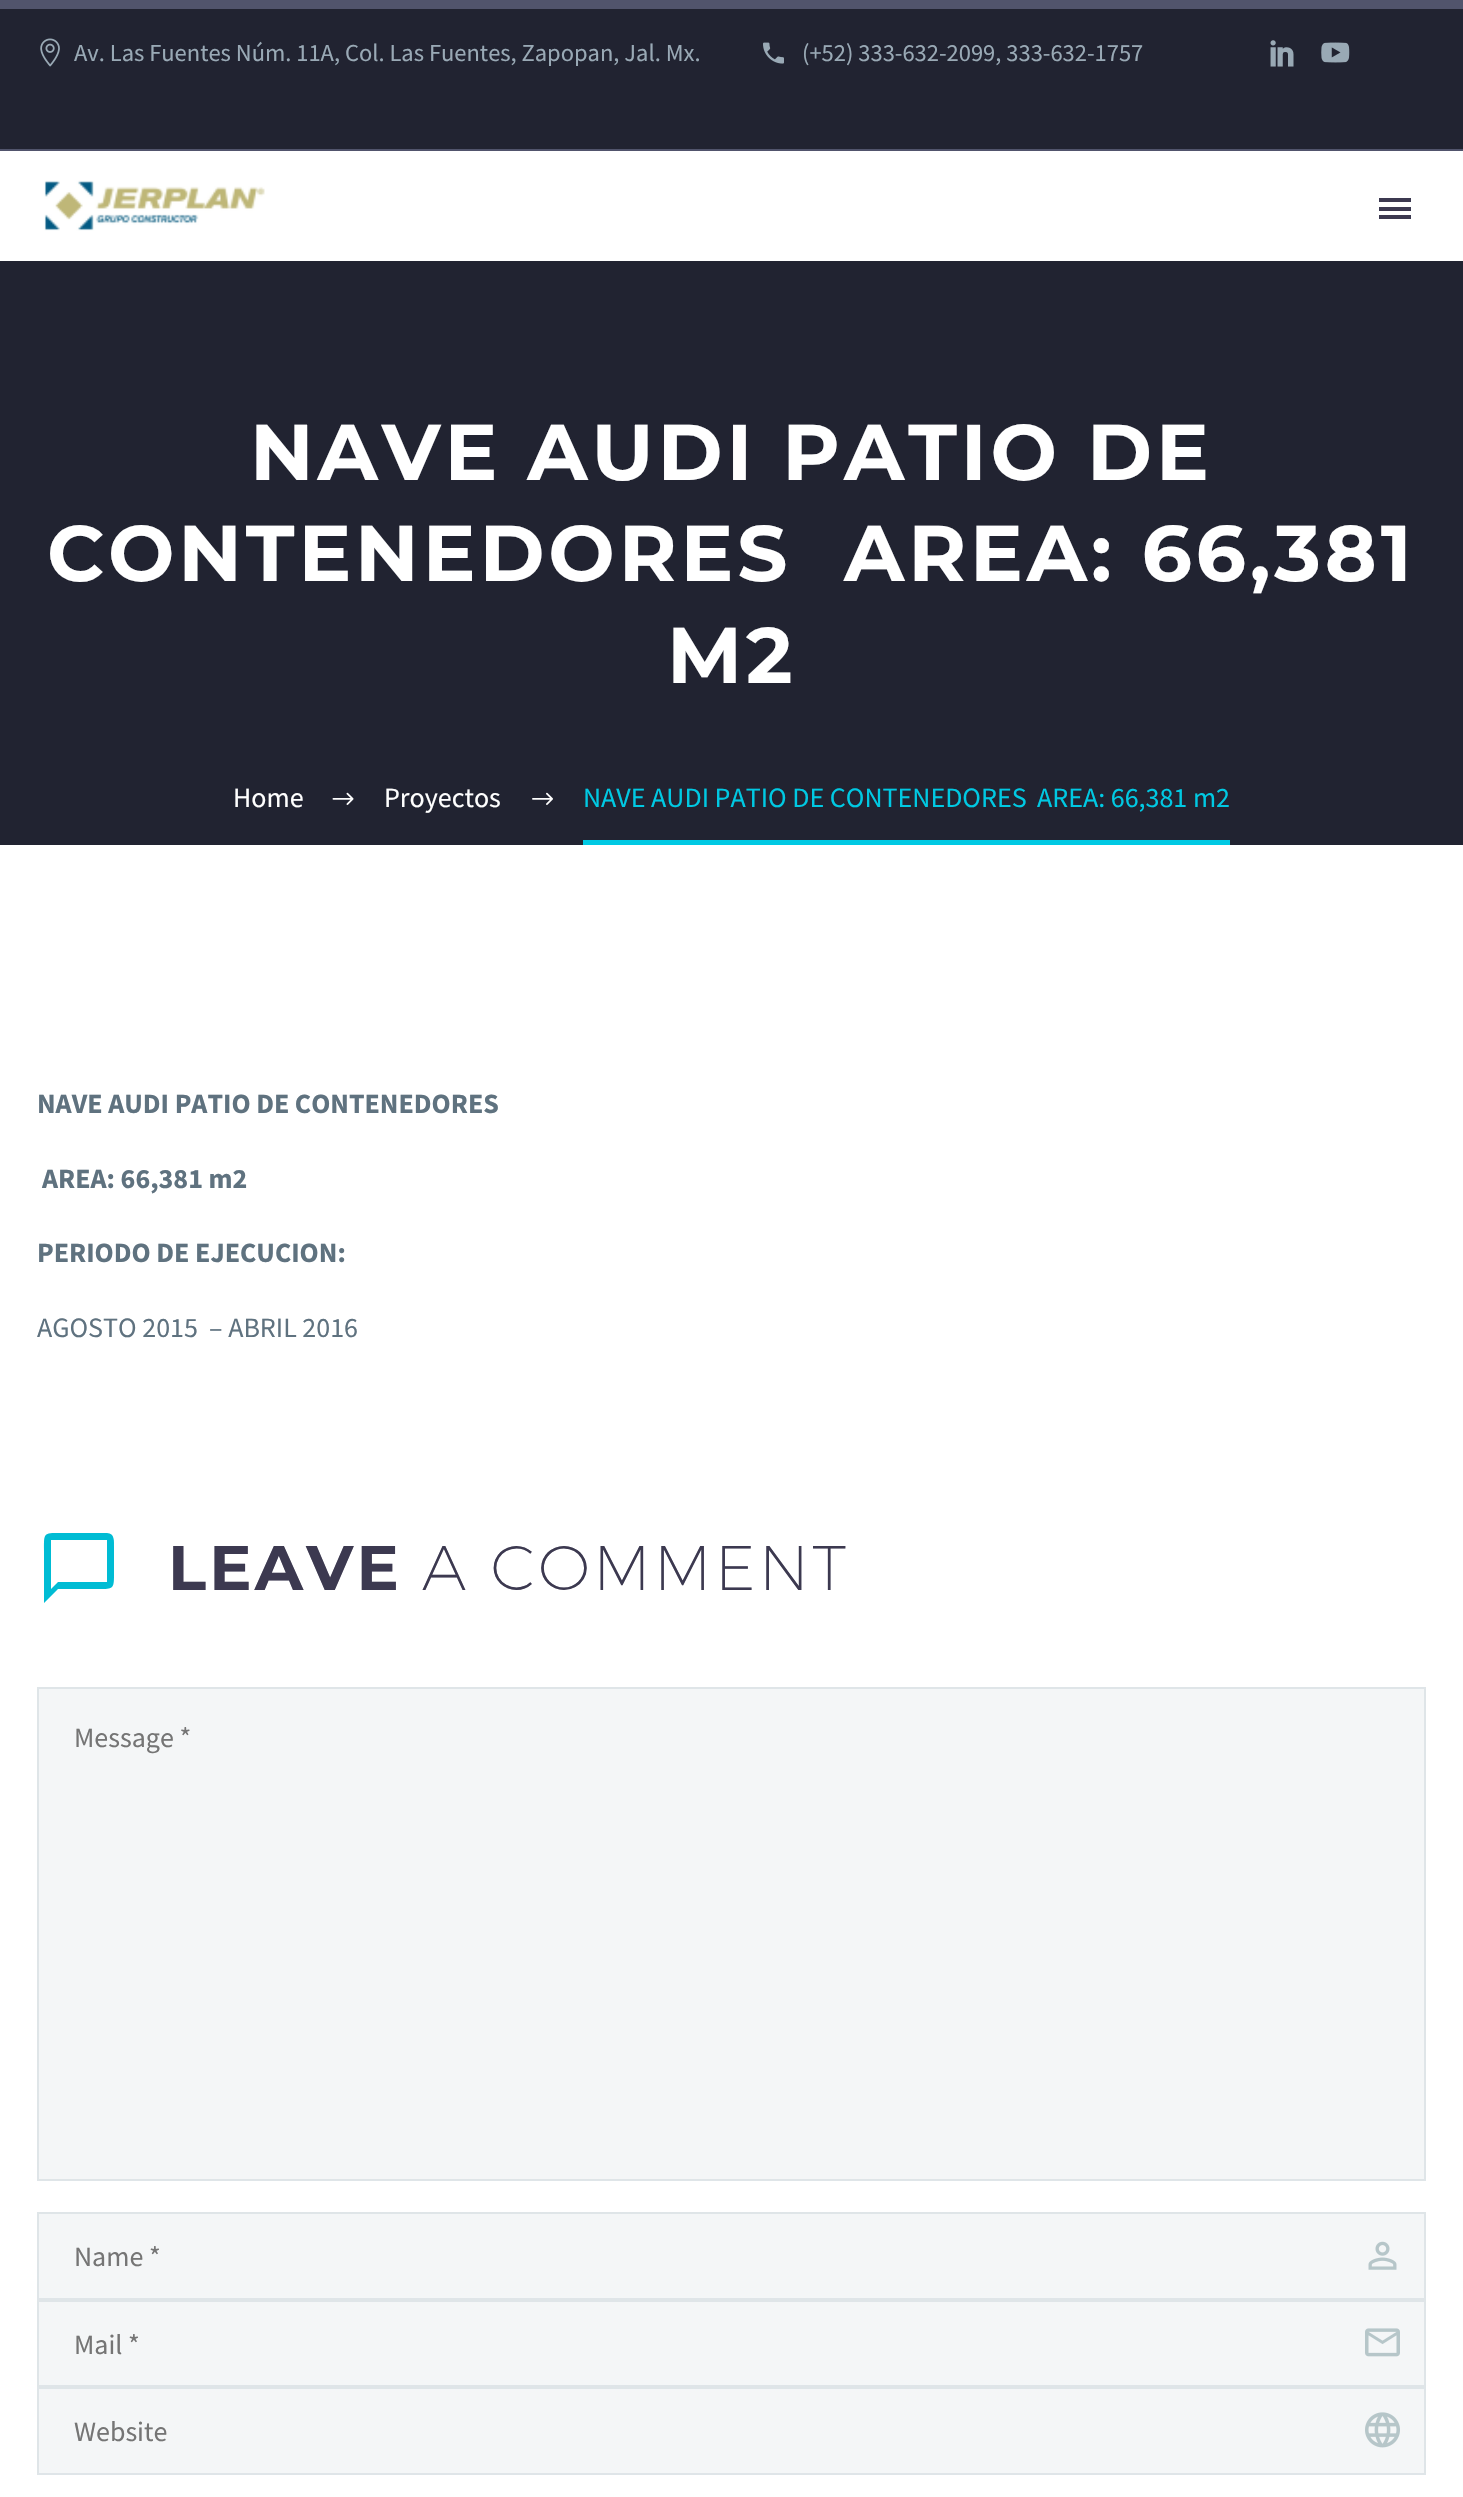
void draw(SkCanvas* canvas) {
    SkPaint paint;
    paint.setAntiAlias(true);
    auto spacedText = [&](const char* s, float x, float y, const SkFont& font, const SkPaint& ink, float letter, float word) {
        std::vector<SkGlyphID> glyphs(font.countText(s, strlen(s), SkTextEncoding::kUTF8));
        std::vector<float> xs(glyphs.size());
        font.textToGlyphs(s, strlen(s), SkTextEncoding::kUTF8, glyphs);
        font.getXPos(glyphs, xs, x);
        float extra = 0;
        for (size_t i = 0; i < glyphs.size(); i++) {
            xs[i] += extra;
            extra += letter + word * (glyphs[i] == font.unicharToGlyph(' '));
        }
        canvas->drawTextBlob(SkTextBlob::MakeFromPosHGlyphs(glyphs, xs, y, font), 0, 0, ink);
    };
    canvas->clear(0xFFFFFFFF);
    paint.setColor(0xFF212331);
    canvas->drawRect(SkRect::MakeXYWH(0, 9, 1463, 140), paint);
    paint.setColor(0xFF51546C);
    canvas->drawRect(SkRect::MakeXYWH(0, 0, 1463, 9), paint);
    canvas->drawRect(SkRect::MakeXYWH(0, 149, 1463, 2), paint);
    canvas->drawImageRect(SkImages::DeferredFromEncodedData(SkData::MakeFromFileName("img1.png")), SkRect::MakeXYWH(40, 38, 20, 29), SkSamplingOptions());
    SkFont font1(fontMgr->matchFamilyStyle("Source Sans Pro", SkFontStyle::Normal()), 24.5f);
    font1.setSubpixel(true);
    paint.setColor(0xFF99A9B5);
    canvas->drawString("Av. Las Fuentes Núm. 11A, Col. Las Fuentes, Zapopan, Jal. Mx.", 74, 61, font1, paint);
    canvas->drawImageRect(SkImages::DeferredFromEncodedData(SkData::MakeFromFileName("img2.png")), SkRect::MakeXYWH(763, 42, 21, 22), SkSamplingOptions());
    canvas->drawString("(+52) 333-632-2099, 333-632-1757", 802, 61, font1, paint);
    canvas->drawImageRect(SkImages::DeferredFromEncodedData(SkData::MakeFromFileName("img3.png")), SkRect::MakeXYWH(1270, 40, 24, 27), SkSamplingOptions());
    canvas->drawImageRect(SkImages::DeferredFromEncodedData(SkData::MakeFromFileName("img4.png")), SkRect::MakeXYWH(1321, 42, 29, 21), SkSamplingOptions());
    canvas->drawImageRect(SkImages::DeferredFromEncodedData(SkData::MakeFromFileName("img5.png")), SkRect::MakeXYWH(44, 180, 221, 51), SkSamplingOptions());
    paint.setColor(0xFF3C3950);
    canvas->drawRect(SkRect::MakeXYWH(1379, 198, 32, 4), paint);
    canvas->drawRect(SkRect::MakeXYWH(1379, 207, 32, 4), paint);
    canvas->drawRect(SkRect::MakeXYWH(1379, 215, 32, 4), paint);
    paint.setColor(0xFF212331);
    canvas->drawRect(SkRect::MakeXYWH(0, 261, 1463, 584), paint);
    SkFont font2(fontMgr->matchFamilyStyle("Montserrat", SkFontStyle::Bold()), 78.75f);
    font2.setSubpixel(true);
    paint.setColor(0xFFFFFFFF);
    spacedText("NAVE AUDI PATIO DE", 250, 480, font2, paint, 3.9f, 0);
    spacedText("CONTENEDORES", 47, 581, font2, paint, 3.9f, 0);
    spacedText("AREA: 66,381", 844, 581, font2, paint, 3.9f, 0);
    spacedText("M2", 667, 683, font2, paint, 3.9f, 0);
    SkFont font3(fontMgr->matchFamilyStyle("Source Sans Pro", SkFontStyle::Normal()), 28);
    font3.setSubpixel(true);
    canvas->drawString("Home", 233, 807, font3, paint);
    canvas->drawImageRect(SkImages::DeferredFromEncodedData(SkData::MakeFromFileName("img6.png")), SkRect::MakeXYWH(332, 792, 22, 13), SkSamplingOptions());
    canvas->drawString("Proyectos", 384, 807, font3, paint);
    canvas->drawImageRect(SkImages::DeferredFromEncodedData(SkData::MakeFromFileName("img7.png")), SkRect::MakeXYWH(532, 792, 21, 13), SkSamplingOptions());
    paint.setColor(0xFF00C9E3);
    canvas->drawRect(SkRect::MakeXYWH(583, 840, 647, 5), paint);
    canvas->drawString("NAVE AUDI PATIO DE CONTENEDORES", 583, 807, font3, paint);
    canvas->drawString("AREA: 66,381 m2", 1037, 807, font3, paint);
    SkFont font4(fontMgr->matchFamilyStyle("Source Sans Pro", SkFontStyle::Bold()), 28);
    font4.setSubpixel(true);
    paint.setColor(0xFF5F727F);
    canvas->drawString("NAVE AUDI PATIO DE CONTENEDORES", 37, 1113, font4, paint);
    canvas->drawString("AREA: 66,381 m2", 42, 1188, font4, paint);
    canvas->drawString("PERIODO DE EJECUCION:", 37, 1262, font4, paint);
    canvas->drawString("AGOSTO 2015  – ABRIL 2016", 37, 1337, font3, paint);
    paint.setColor(0xFF00BCD4);
    canvas->drawPath(SkPathBuilder().moveTo(107, 1533).lineTo(60, 1533).cubicTo(43, 1533, 44, 1533, 44, 1551).lineTo(44, 1603).lineTo(58, 1589).lineTo(99, 1589).cubicTo(113, 1589, 114, 1589, 114, 1575).lineTo(114, 1547).cubicTo(114, 1542, 115, 1533, 107, 1533).close().moveTo(107, 1582).lineTo(58, 1582).lineTo(51, 1589).lineTo(51, 1540).lineTo(107, 1540).close().detach(), paint);
    SkFont font5(fontMgr->matchFamilyStyle("Montserrat", SkFontStyle::Bold()), 63);
    font5.setSubpixel(true);
    paint.setColor(0xFF3C3950);
    spacedText("LEAVE", 168, 1590, font5, paint, 3.25f, 0);
    SkFont font6(fontMgr->matchFamilyStyle("Montserrat", SkFontStyle(200, SkFontStyle::kNormal_Width, SkFontStyle::kUpright_Slant)), 63);
    font6.setSubpixel(true);
    spacedText("A COMMENT", 422, 1590, font6, paint, 3.25f, 0);
    paint.setColor(0xFFF4F6F7);
    canvas->drawRect(SkRect::MakeXYWH(38, 1688, 1387, 492), paint);
    paint.setStyle(SkPaint::kStroke_Style);
    paint.setStrokeWidth(2);
    paint.setColor(0xFFDFE5E8);
    canvas->drawRect(SkRect::MakeXYWH(38, 1688, 1387, 492), paint);
    paint.setStyle(SkPaint::kFill_Style);
    paint.setColor(0xFF757575);
    canvas->drawString("Message *", 74, 1747, font3, paint);
    paint.setColor(0xFFF4F6F7);
    canvas->drawRect(SkRect::MakeXYWH(38, 2213, 1387, 86), paint);
    paint.setStyle(SkPaint::kStroke_Style);
    paint.setColor(0xFFDFE5E8);
    canvas->drawRect(SkRect::MakeXYWH(38, 2213, 1387, 86), paint);
    paint.setStyle(SkPaint::kFill_Style);
    paint.setColor(0xFF757575);
    canvas->drawString("Name *", 74, 2266, font3, paint);
    canvas->drawImageRect(SkImages::DeferredFromEncodedData(SkData::MakeFromFileName("img8.png")), SkRect::MakeXYWH(1368, 2241, 29, 29), SkSamplingOptions());
    paint.setColor(0xFFF4F6F7);
    canvas->drawRect(SkRect::MakeXYWH(38, 2301, 1387, 85), paint);
    paint.setStyle(SkPaint::kStroke_Style);
    paint.setColor(0xFFDFE5E8);
    canvas->drawRect(SkRect::MakeXYWH(38, 2301, 1387, 85), paint);
    paint.setStyle(SkPaint::kFill_Style);
    paint.setColor(0xFF757575);
    canvas->drawString("Mail *", 74, 2354, font3, paint);
    canvas->drawImageRect(SkImages::DeferredFromEncodedData(SkData::MakeFromFileName("img9.png")), SkRect::MakeXYWH(1365, 2328, 35, 29), SkSamplingOptions());
    paint.setColor(0xFFF4F6F7);
    canvas->drawRect(SkRect::MakeXYWH(38, 2388, 1387, 86), paint);
    paint.setStyle(SkPaint::kStroke_Style);
    paint.setColor(0xFFDFE5E8);
    canvas->drawRect(SkRect::MakeXYWH(38, 2388, 1387, 86), paint);
    paint.setStyle(SkPaint::kFill_Style);
    paint.setColor(0xFF757575);
    canvas->drawString("Website", 74, 2441, font3, paint);
    canvas->drawImageRect(SkImages::DeferredFromEncodedData(SkData::MakeFromFileName("img10.png")), SkRect::MakeXYWH(1365, 2412, 35, 36), SkSamplingOptions());
}
